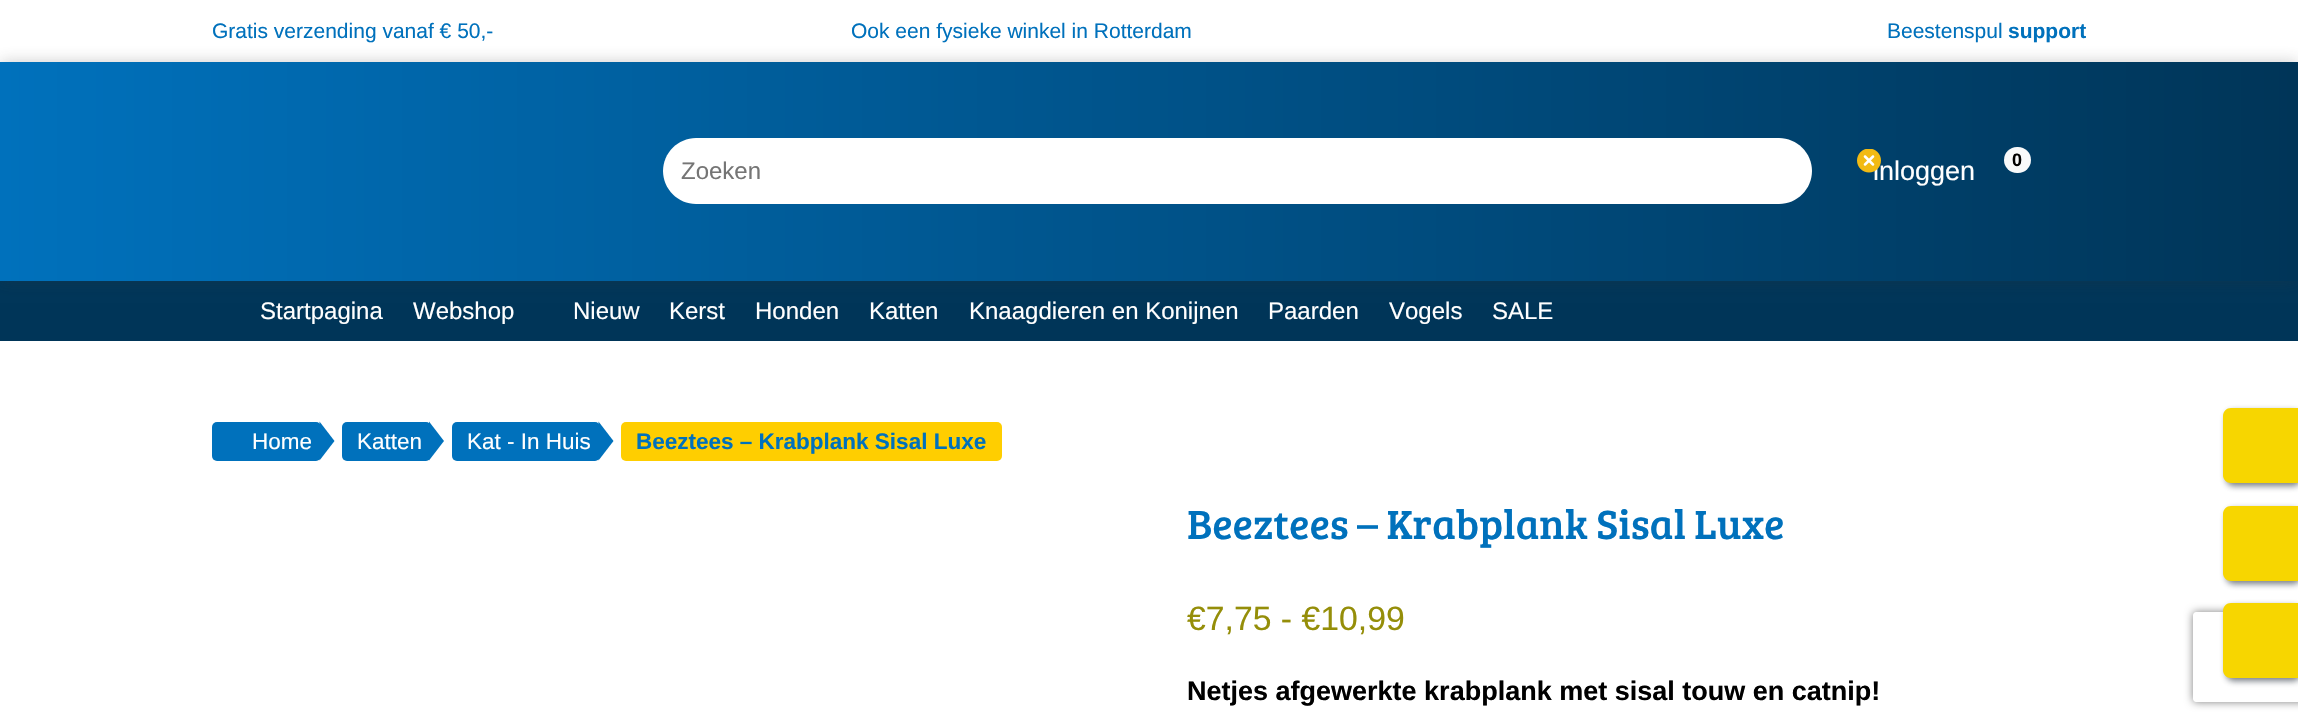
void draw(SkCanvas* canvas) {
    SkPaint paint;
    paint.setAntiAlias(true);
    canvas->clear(0xFFFFFFFF);
    SkFont font1(fontMgr->matchFamilyStyle("Liberation Sans", SkFontStyle::Normal()), 21);
    font1.setSubpixel(true);
    paint.setColor(0xFF0071BC);
    canvas->drawString("Gratis verzending vanaf € 50,-", 212, 38, font1, paint);
    canvas->drawString("Ook een fysieke winkel in Rotterdam", 851, 38, font1, paint);
    canvas->drawString("Beestenspul", 1887, 38, font1, paint);
    SkFont font2(fontMgr->matchFamilyStyle("Liberation Sans", SkFontStyle::Bold()), 21);
    font2.setSubpixel(true);
    canvas->drawString("support", 2008, 38, font2, paint);
    paint.setColor(0xFF003558);
    canvas->drawRect(SkRect::MakeXYWH(0, 281, 2298, 60), paint);
    paint.setColor(0x40323232);
    paint.setMaskFilter(SkMaskFilter::MakeBlur(kNormal_SkBlurStyle, 7.5f));
    canvas->drawRect(SkRect::MakeXYWH(0, 62, 2298, 219), paint);
    paint.setMaskFilter(nullptr);
    {
        const SkColor colors[] = {0xFF0071BC, 0xFF003558};
        const float stops[] = {0, 1};
        const SkPoint ends[] = {{0, 171}, {2298, 171}};
        paint.setShader(SkGradientShader::MakeLinear(ends, colors, stops, 2, SkTileMode::kClamp));
        paint.setAlpha(255);
    }
    canvas->drawRect(SkRect::MakeXYWH(0, 62, 2298, 219), paint);
    paint.setShader(nullptr);
    paint.setColor(0xFFFFFFFF);
    canvas->drawPath(SkPathBuilder().moveTo(696, 138).lineTo(1751, 138).lineTo(1751, 204).lineTo(696, 204).cubicTo(678, 204, 663, 189, 663, 171).cubicTo(663, 153, 678, 138, 696, 138).close().detach(), paint);
    SkFont font3(fontMgr->matchFamilyStyle("Liberation Sans", SkFontStyle::Normal()), 24);
    font3.setSubpixel(true);
    paint.setColor(0xFF757575);
    canvas->drawString("Zoeken", 681, 179, font3, paint);
    paint.setColor(0xFFFFFFFF);
    canvas->drawPath(SkPathBuilder().moveTo(1751, 138).lineTo(1779, 138).cubicTo(1797, 138, 1812, 153, 1812, 171).cubicTo(1812, 189, 1797, 204, 1779, 204).lineTo(1751, 204).close().detach(), paint);
    SkFont font4(fontMgr->matchFamilyStyle("Liberation Sans", SkFontStyle::Normal()), 27);
    font4.setSubpixel(true);
    canvas->drawString("inloggen", 1873, 180, font4, paint);
    canvas->drawImageRect(SkImages::DeferredFromEncodedData(SkData::MakeFromFileName("img1.png")), SkRect::MakeXYWH(1857, 149, 24, 24), SkSamplingOptions());
    paint.setColor(0xFFF8F9FA);
    canvas->drawRoundRect(SkRect::MakeXYWH(2004, 147, 27, 26), 13, 13, paint);
    SkFont font5(fontMgr->matchFamilyStyle("Liberation Sans", SkFontStyle::Bold()), 18);
    font5.setSubpixel(true);
    paint.setColor(0xFF000000);
    canvas->drawString("0", 2012, 166, font5, paint);
    paint.setColor(0xFFFFFFFF);
    canvas->drawString("Startpagina", 260, 319, font3, paint);
    canvas->drawString("Webshop", 413, 319, font3, paint);
    canvas->drawString("Nieuw", 573, 319, font3, paint);
    canvas->drawString("Kerst", 669, 319, font3, paint);
    canvas->drawString("Honden", 755, 319, font3, paint);
    canvas->drawString("Katten", 869, 319, font3, paint);
    canvas->drawString("Knaagdieren en Konijnen", 969, 319, font3, paint);
    canvas->drawString("Paarden", 1268, 319, font3, paint);
    canvas->drawString("Vogels", 1389, 319, font3, paint);
    canvas->drawString("SALE", 1492, 319, font3, paint);
    paint.setColor(0xFF0071BC);
    canvas->drawRoundRect(SkRect::MakeXYWH(212, 422, 109, 39), 5, 5, paint);
    SkFont font6(fontMgr->matchFamilyStyle("Liberation Sans", SkFontStyle::Normal()), 22.5f);
    font6.setSubpixel(true);
    paint.setColor(0xFFFFFFFF);
    canvas->drawString("Home", 252, 449, font6, paint);
    canvas->drawRect(SkRect::MakeXYWH(320, 424, 1, 35), paint);
    paint.setColor(0xFF0071BC);
    canvas->drawPath(SkPathBuilder().moveTo(319.5f, 460.5f).lineTo(319.5f, 421.5f).lineTo(334.5f, 441).close().detach(), paint);
    canvas->drawRoundRect(SkRect::MakeXYWH(342, 422, 89, 39), 5, 5, paint);
    paint.setColor(0xFFFFFFFF);
    canvas->drawString("Katten", 357, 449, font6, paint);
    canvas->drawRect(SkRect::MakeXYWH(429, 423, 2, 37), paint);
    paint.setColor(0xFF0071BC);
    canvas->drawPath(SkPathBuilder().moveTo(429, 460.5f).lineTo(429, 421.5f).lineTo(444, 441).close().detach(), paint);
    canvas->drawRoundRect(SkRect::MakeXYWH(452, 422, 148, 39), 5, 5, paint);
    paint.setColor(0xFFFFFFFF);
    canvas->drawString("Kat - In Huis", 467, 449, font6, paint);
    canvas->drawRect(SkRect::MakeXYWH(599, 424, 1, 35), paint);
    paint.setColor(0xFF0071BC);
    canvas->drawPath(SkPathBuilder().moveTo(598.5f, 460.5f).lineTo(598.5f, 421.5f).lineTo(613.5f, 441).close().detach(), paint);
    paint.setColor(0xFFFFCE00);
    canvas->drawRoundRect(SkRect::MakeXYWH(621, 422, 381, 39), 5, 5, paint);
    SkFont font7(fontMgr->matchFamilyStyle("Liberation Sans", SkFontStyle::Bold()), 22.5f);
    font7.setSubpixel(true);
    paint.setColor(0xFF0071BC);
    canvas->drawString("Beeztees – Krabplank Sisal Luxe", 636, 449, font7, paint);
    SkFont font8(fontMgr->matchFamilyStyle("Bree Serif", SkFontStyle::Normal()), 42);
    font8.setSubpixel(true);
    canvas->drawString("Beeztees – Krabplank Sisal Luxe", 1187, 539, font8, paint);
    SkFont font9(fontMgr->matchFamilyStyle("Liberation Sans", SkFontStyle::Normal()), 33.75f);
    font9.setSubpixel(true);
    paint.setColor(0xFF958E09);
    canvas->drawString("€7,75 - €10,99", 1187, 630, font9, paint);
    SkFont font10(fontMgr->matchFamilyStyle("Liberation Sans", SkFontStyle::Bold()), 27);
    font10.setSubpixel(true);
    paint.setColor(0xFF000000);
    canvas->drawString("Netjes afgewerkte krabplank met sisal touw en catnip!", 1187, 700, font10, paint);
    paint.setColor(0xA62D3540);
    paint.setMaskFilter(SkMaskFilter::MakeBlur(kNormal_SkBlurStyle, 3));
    canvas->drawRoundRect(SkRect::MakeXYWH(2226, 411, 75, 75), 8, 8, paint);
    paint.setMaskFilter(nullptr);
    paint.setColor(0xFFF7D600);
    canvas->drawPath(SkPathBuilder().moveTo(2231, 408).lineTo(2298, 408).lineTo(2298, 483).lineTo(2231, 483).cubicTo(2226.5f, 483, 2223, 479.5f, 2223, 475).lineTo(2223, 416).cubicTo(2223, 411.5f, 2226.5f, 408, 2231, 408).close().detach(), paint);
    paint.setColor(0xA62D3540);
    paint.setMaskFilter(SkMaskFilter::MakeBlur(kNormal_SkBlurStyle, 3));
    canvas->drawRoundRect(SkRect::MakeXYWH(2226, 509, 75, 75), 8, 8, paint);
    paint.setMaskFilter(nullptr);
    paint.setColor(0xFFF7D600);
    canvas->drawPath(SkPathBuilder().moveTo(2231, 506).lineTo(2298, 506).lineTo(2298, 581).lineTo(2231, 581).cubicTo(2226.5f, 581, 2223, 577.5f, 2223, 573).lineTo(2223, 514).cubicTo(2223, 509.5f, 2226.5f, 506, 2231, 506).close().detach(), paint);
    paint.setColor(0xA62D3540);
    paint.setMaskFilter(SkMaskFilter::MakeBlur(kNormal_SkBlurStyle, 3));
    canvas->drawRoundRect(SkRect::MakeXYWH(2226, 606, 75, 75), 8, 8, paint);
    paint.setMaskFilter(nullptr);
    canvas->save();
    canvas->clipPath(SkPathBuilder(SkPathFillType::kEvenOdd).moveTo(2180, 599).lineTo(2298, 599).lineTo(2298, 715).lineTo(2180, 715).close().moveTo(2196, 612).lineTo(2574, 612).cubicTo(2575.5f, 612, 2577, 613.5f, 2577, 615).lineTo(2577, 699).cubicTo(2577, 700.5f, 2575.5f, 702, 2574, 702).lineTo(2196, 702).cubicTo(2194.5f, 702, 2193, 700.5f, 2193, 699).lineTo(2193, 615).cubicTo(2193, 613.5f, 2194.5f, 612, 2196, 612).close().detach(), true);
    paint.setColor(0xFF808080);
    paint.setMaskFilter(SkMaskFilter::MakeBlur(kNormal_SkBlurStyle, 4));
    canvas->drawRoundRect(SkRect::MakeXYWH(2193, 612, 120, 90), 3, 3, paint);
    paint.setMaskFilter(nullptr);
    canvas->restore();
    paint.setColor(0xFFF7D600);
    canvas->drawPath(SkPathBuilder().moveTo(2231, 603).lineTo(2298, 603).lineTo(2298, 678).lineTo(2231, 678).cubicTo(2226.5f, 678, 2223, 674.5f, 2223, 670).lineTo(2223, 611).cubicTo(2223, 606.5f, 2226.5f, 603, 2231, 603).close().detach(), paint);
}
